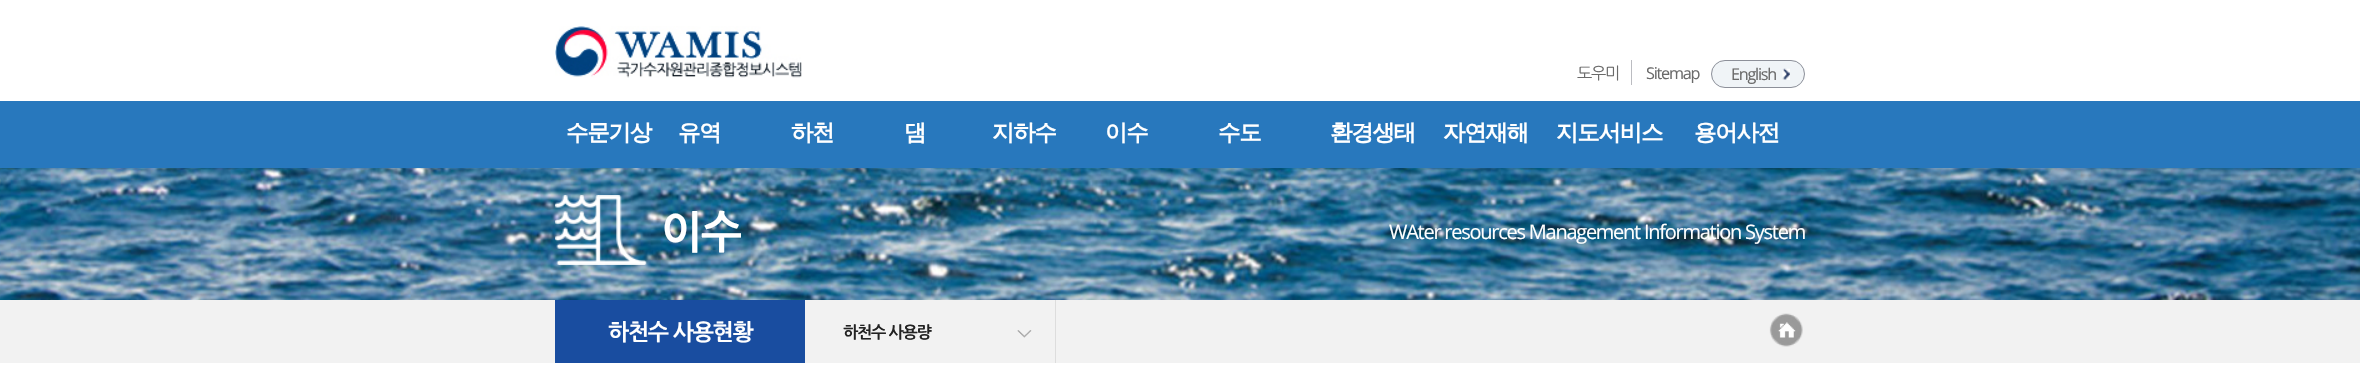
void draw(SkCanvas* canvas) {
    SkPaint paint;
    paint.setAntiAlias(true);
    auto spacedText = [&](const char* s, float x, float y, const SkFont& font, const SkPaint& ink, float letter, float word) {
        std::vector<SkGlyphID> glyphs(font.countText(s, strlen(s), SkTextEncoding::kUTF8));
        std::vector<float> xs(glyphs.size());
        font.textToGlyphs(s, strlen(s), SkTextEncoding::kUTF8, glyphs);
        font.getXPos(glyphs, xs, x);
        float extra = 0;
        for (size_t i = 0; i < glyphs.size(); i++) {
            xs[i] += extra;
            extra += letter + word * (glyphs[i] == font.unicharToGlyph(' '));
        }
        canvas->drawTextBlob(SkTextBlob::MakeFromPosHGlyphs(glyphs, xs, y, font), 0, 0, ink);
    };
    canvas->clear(0xFFFFFFFF);
    canvas->drawImageRect(SkImages::DeferredFromEncodedData(SkData::MakeFromFileName("img1.png")), SkRect::MakeXYWH(555, 26, 247, 52), SkSamplingOptions());
    paint.setColor(0xFFBBBCC1);
    canvas->drawRect(SkRect::MakeXYWH(1631, 60, 1, 25), paint);
    SkFont font1(fontMgr->matchFamilyStyle("NanumGothic", SkFontStyle::Normal()), 16.25f);
    font1.setSubpixel(true);
    paint.setColor(0xFF6A6A6A);
    spacedText("도우미", 1577, 79, font1, paint, -1.25f, 0);
    SkFont font2(fontMgr->matchFamilyStyle("Open Sans", SkFontStyle::Normal()), 16.25f);
    font2.setSubpixel(true);
    spacedText("Sitemap", 1646, 79, font2, paint, -1.25f, 0);
    paint.setColor(0xFFF0F4F7);
    canvas->drawRoundRect(SkRect::MakeXYWH(1711, 60, 94, 28), 14, 14, paint);
    canvas->drawImageRect(SkImages::DeferredFromEncodedData(SkData::MakeFromFileName("img2.png")), SkRect::MakeXYWH(1782, 68, 8, 12), SkSamplingOptions());
    paint.setStyle(SkPaint::kStroke_Style);
    paint.setStrokeWidth(1);
    paint.setColor(0xFF8D9099);
    canvas->drawRoundRect(SkRect::MakeXYWH(1711.5f, 60.5f, 93, 27), 13.5f, 13.5f, paint);
    paint.setStyle(SkPaint::kFill_Style);
    paint.setColor(0xFF6A6A6A);
    spacedText("English", 1731, 80, font2, paint, -1.25f, 0);
    paint.setColor(0xFF2878BD);
    canvas->drawRect(SkRect::MakeXYWH(0, 101, 2360, 67), paint);
    SkFont font3(fontMgr->matchFamilyStyle("WenQuanYi Zen Hei", SkFontStyle::Bold()), 22.5f);
    font3.setSubpixel(true);
    paint.setColor(0xFFFFFFFF);
    spacedText("수문기상", 566, 140, font3, paint, -1.25f, 0);
    spacedText("유역", 678, 140, font3, paint, -1.25f, 0);
    spacedText("하천", 791, 140, font3, paint, -1.25f, 0);
    spacedText("댐", 904, 140, font3, paint, -1.25f, 0);
    spacedText("지하수", 992, 140, font3, paint, -1.25f, 0);
    spacedText("이수", 1105, 140, font3, paint, -1.25f, 0);
    spacedText("수도", 1218, 140, font3, paint, -1.25f, 0);
    spacedText("환경생태", 1330, 140, font3, paint, -1.25f, 0);
    spacedText("자연재해", 1443, 140, font3, paint, -1.25f, 0);
    spacedText("지도서비스", 1556, 140, font3, paint, -1.25f, 0);
    spacedText("용어사전", 1694, 140, font3, paint, -1.25f, 0);
    canvas->drawImageRect(SkImages::DeferredFromEncodedData(SkData::MakeFromFileName("img3.png")), SkRect::MakeXYWH(0, 168, 2360, 132), SkSamplingOptions());
    canvas->drawImageRect(SkImages::DeferredFromEncodedData(SkData::MakeFromFileName("img4.png")), SkRect::MakeXYWH(555, 195, 92, 70), SkSamplingOptions());
    canvas->save();
    canvas->clipRect(SkRect::MakeXYWH(555, 163, 186, 137));
    SkFont font4(fontMgr->matchFamilyStyle("NanumGothic", SkFontStyle::Bold()), 44);
    font4.setSubpixel(true);
    spacedText("이수", 661, 248, font4, paint, -1.25f, 0);
    canvas->restore();
    SkFont font5(fontMgr->matchFamilyStyle("Open Sans", SkFontStyle::Normal()), 20);
    font5.setSubpixel(true);
    spacedText("WAter resources Management Information System", 1389, 239, font5, paint, -1.25f, 0);
    paint.setColor(0xFFF2F2F2);
    canvas->drawRect(SkRect::MakeXYWH(0, 300, 2360, 63), paint);
    paint.setColor(0xFF194DA0);
    canvas->drawRect(SkRect::MakeXYWH(555, 300, 250, 63), paint);
    SkFont font6(fontMgr->matchFamilyStyle("NanumGothic", SkFontStyle::Bold()), 22.5f);
    font6.setSubpixel(true);
    paint.setColor(0xFFFFFFFF);
    spacedText("하천수 사용현황", 608, 340, font6, paint, -1.25f, 0);
    paint.setColor(0xFFDDDDDD);
    canvas->drawRect(SkRect::MakeXYWH(1055, 300, 1, 63), paint);
    canvas->drawImageRect(SkImages::DeferredFromEncodedData(SkData::MakeFromFileName("img5.png")), SkRect::MakeXYWH(1017, 330, 15, 8), SkSamplingOptions());
    SkFont font7(fontMgr->matchFamilyStyle("NanumGothic", SkFontStyle::Bold()), 16.25f);
    font7.setSubpixel(true);
    paint.setColor(0xFF222222);
    spacedText("하천수 사용량", 843, 338, font7, paint, -1.25f, 0);
    canvas->drawImageRect(SkImages::DeferredFromEncodedData(SkData::MakeFromFileName("img6.png")), SkRect::MakeXYWH(1769, 313, 34, 34), SkSamplingOptions());
}
